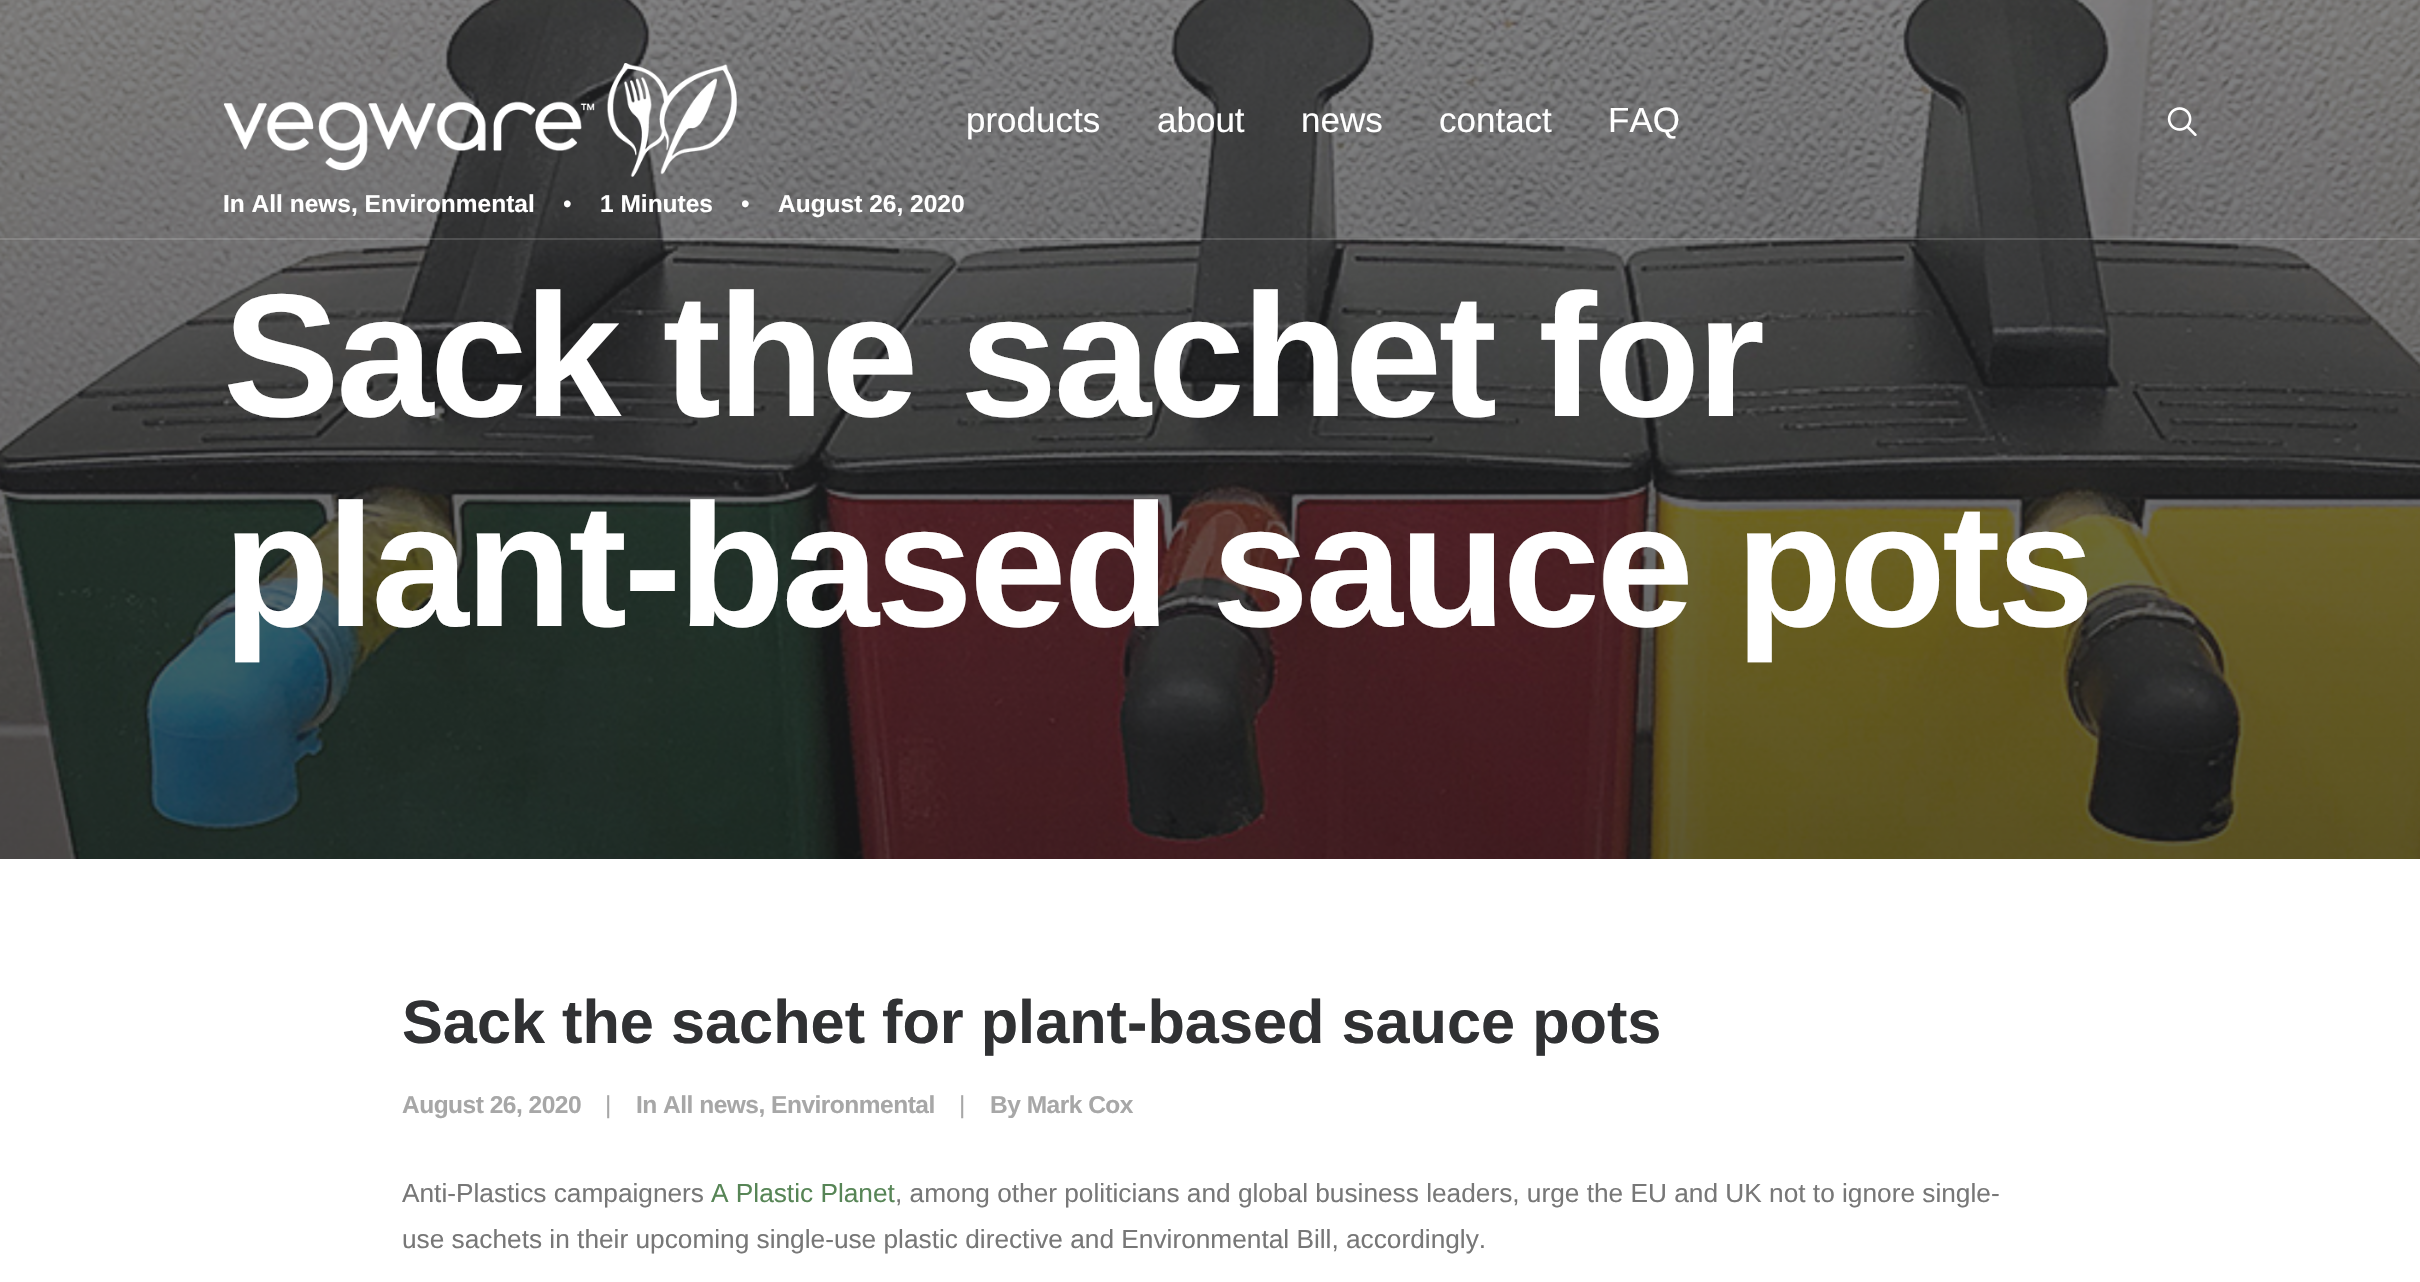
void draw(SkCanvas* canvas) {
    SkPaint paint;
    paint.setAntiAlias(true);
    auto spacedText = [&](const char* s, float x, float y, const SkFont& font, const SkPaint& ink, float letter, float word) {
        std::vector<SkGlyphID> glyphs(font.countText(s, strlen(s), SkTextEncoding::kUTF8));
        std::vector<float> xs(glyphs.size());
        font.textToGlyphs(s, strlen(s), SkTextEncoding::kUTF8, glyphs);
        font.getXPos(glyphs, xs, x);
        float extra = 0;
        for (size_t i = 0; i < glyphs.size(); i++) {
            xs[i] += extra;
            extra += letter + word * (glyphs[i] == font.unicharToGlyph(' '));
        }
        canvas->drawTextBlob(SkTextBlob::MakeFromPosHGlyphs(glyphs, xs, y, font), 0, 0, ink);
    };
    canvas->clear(0xFFFFFFFF);
    canvas->drawImageRect(SkImages::DeferredFromEncodedData(SkData::MakeFromFileName("img3.png")), SkRect::MakeXYWH(0, 0, 2420, 859), SkSamplingOptions());
    canvas->drawImageRect(SkImages::DeferredFromEncodedData(SkData::MakeFromFileName("img1.png")), SkRect::MakeXYWH(224, 63, 513, 114), SkSamplingOptions());
    SkFont font1(fontMgr->matchFamilyStyle("Liberation Sans", SkFontStyle::Normal()), 35);
    font1.setSubpixel(true);
    paint.setColor(0xFFFFFFFF);
    canvas->drawString("products", 966, 132, font1, paint);
    canvas->drawString("about", 1157, 132, font1, paint);
    canvas->drawString("news", 1301, 132, font1, paint);
    canvas->drawString("contact", 1439, 132, font1, paint);
    canvas->drawString("FAQ", 1608, 132, font1, paint);
    canvas->drawImageRect(SkImages::DeferredFromEncodedData(SkData::MakeFromFileName("img2.png")), SkRect::MakeXYWH(2167, 107, 30, 29), SkSamplingOptions());
    paint.setColor(0x26FFFFFF);
    canvas->drawRect(SkRect::MakeXYWH(0, 238, 2420, 2), paint);
    SkFont font2(fontMgr->matchFamilyStyle("Liberation Sans", SkFontStyle::Bold()), 24.5f);
    font2.setSubpixel(true);
    paint.setColor(0xFFFFFFFF);
    canvas->drawString("In All news, Environmental", 223, 212, font2, paint);
    SkFont font3(fontMgr->matchFamilyStyle("Liberation Sans", SkFontStyle::Normal()), 24.5f);
    font3.setSubpixel(true);
    canvas->drawString("•", 563, 212, font3, paint);
    canvas->drawString("1 Minutes", 600, 212, font2, paint);
    canvas->drawString("•", 741, 212, font3, paint);
    canvas->drawString("August 26, 2020", 778, 212, font2, paint);
    SkFont font4(fontMgr->matchFamilyStyle("Liberation Sans", SkFontStyle::Bold()), 175);
    font4.setSubpixel(true);
    spacedText("Sack the sachet for", 223, 416, font4, paint, -3.5f, 0);
    spacedText("plant-based sauce pots", 223, 626, font4, paint, -3.5f, 0);
    SkFont font5(fontMgr->matchFamilyStyle("Liberation Sans", SkFontStyle::Bold()), 61.25f);
    font5.setSubpixel(true);
    paint.setColor(0xFF303133);
    canvas->drawString("Sack the sachet for plant-based sauce pots", 402, 1043, font5, paint);
    paint.setColor(0xFFA7A7A7);
    spacedText("August 26, 2020", 402, 1113, font2, paint, -0.5f, 0);
    spacedText("|", 605, 1113, font3, paint, -0.5f, 0);
    spacedText("In All news, Environmental", 636, 1113, font2, paint, -0.5f, 0);
    spacedText("|", 959, 1113, font3, paint, -0.5f, 0);
    spacedText("By Mark Cox", 990, 1113, font2, paint, -0.5f, 0);
    SkFont font6(fontMgr->matchFamilyStyle("Liberation Sans", SkFontStyle::Normal()), 26.25f);
    font6.setSubpixel(true);
    paint.setColor(0xFF777777);
    canvas->drawString("Anti-Plastics campaigners", 402, 1202, font6, paint);
    paint.setColor(0xFF578556);
    canvas->drawString("A Plastic Planet", 711, 1202, font6, paint);
    paint.setColor(0xFF777777);
    canvas->drawString(", among other politicians and global business leaders, urge the EU and UK not to ignore single-", 895, 1202, font6, paint);
    canvas->drawString("use sachets in their upcoming single-use plastic directive and Environmental Bill, accordingly.", 402, 1248, font6, paint);
}
